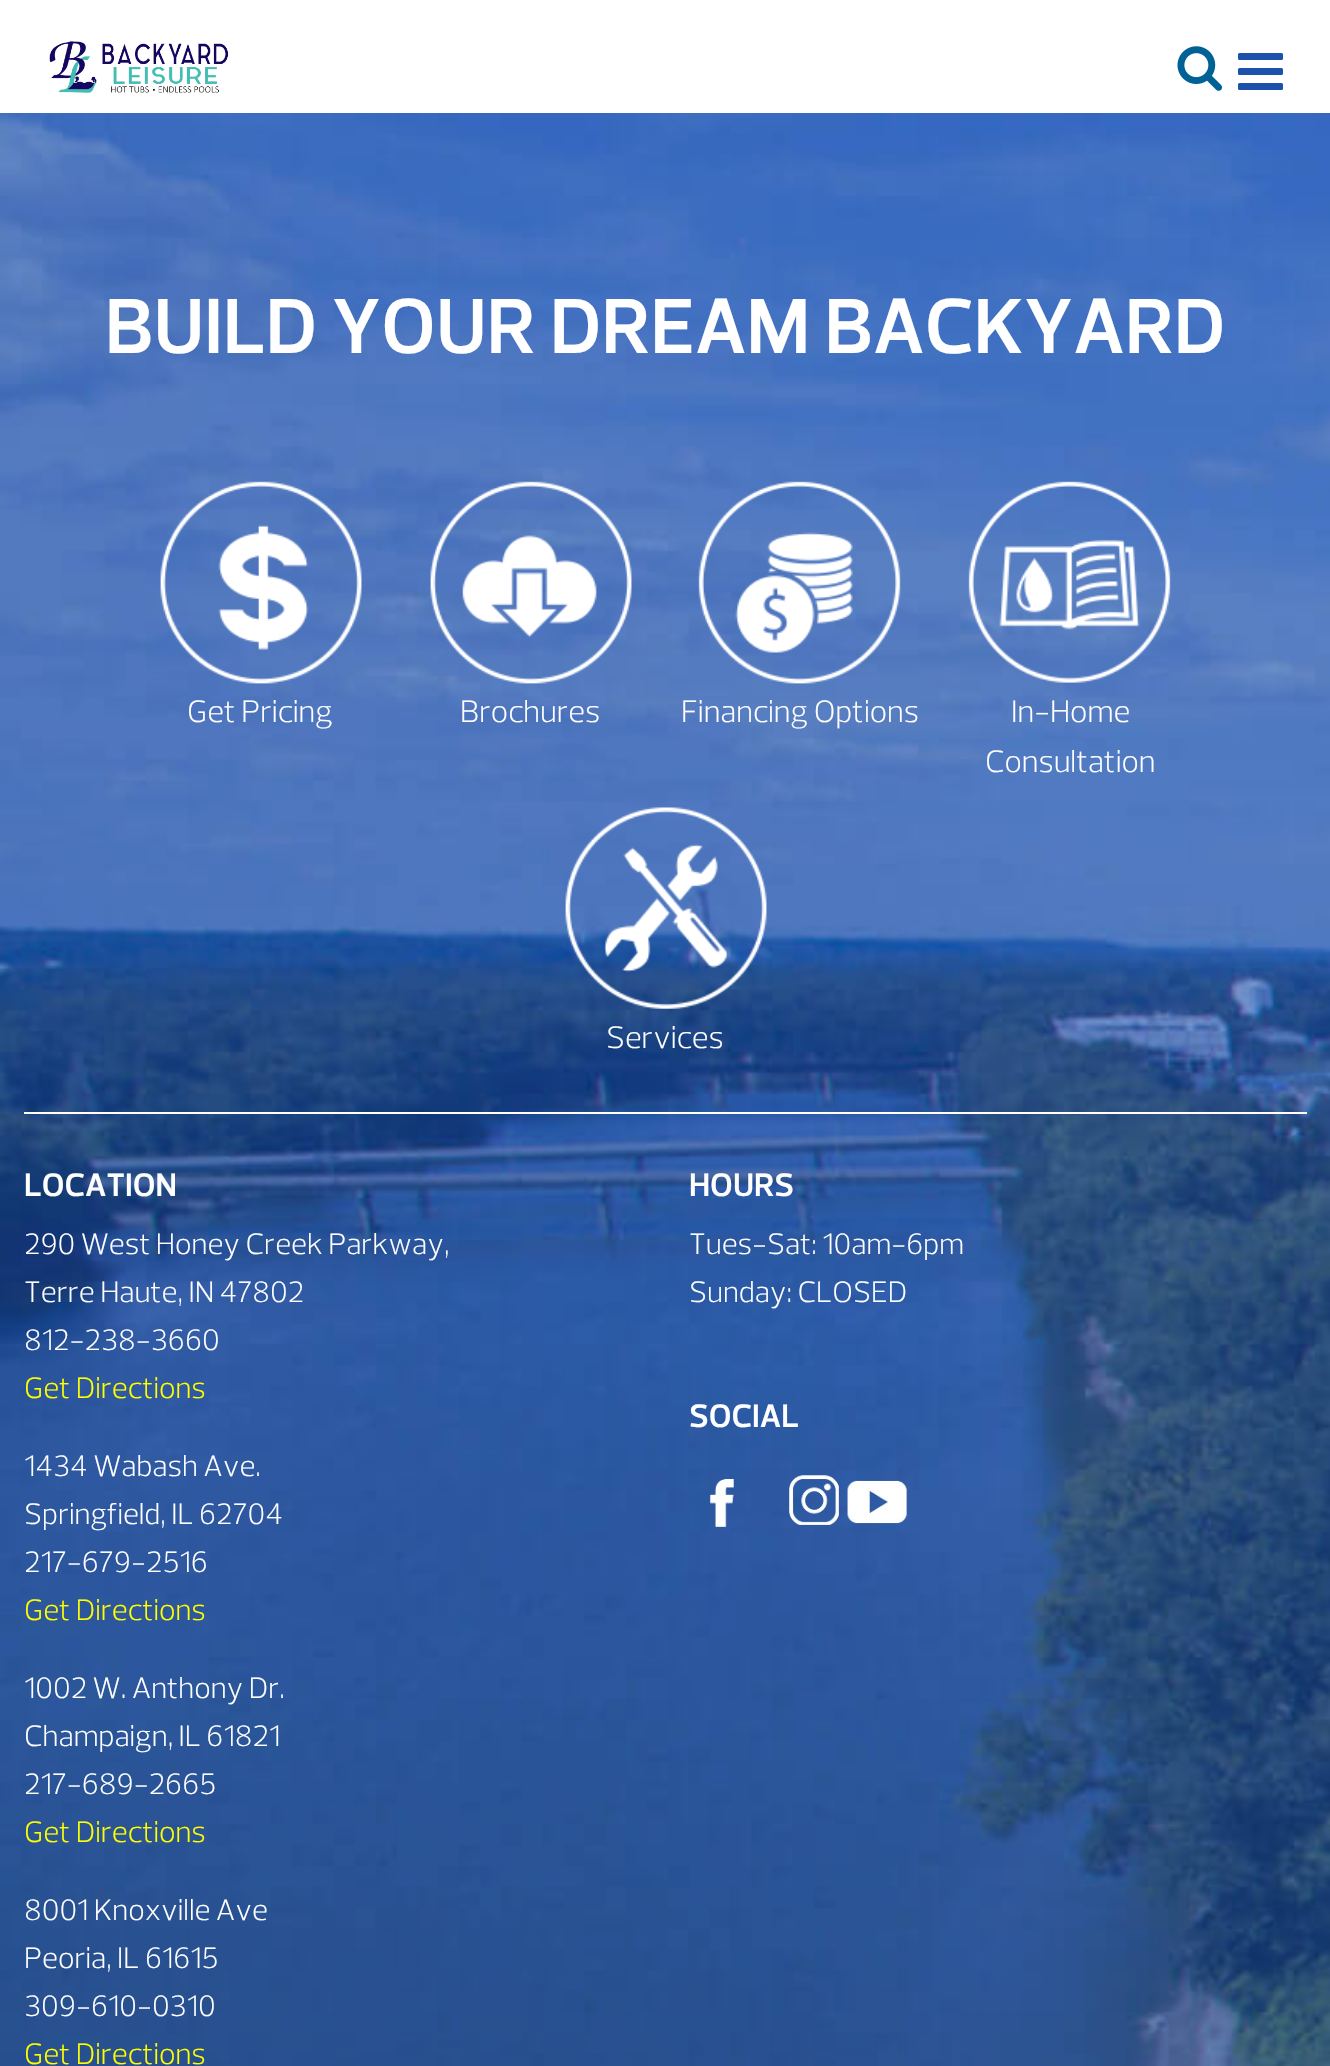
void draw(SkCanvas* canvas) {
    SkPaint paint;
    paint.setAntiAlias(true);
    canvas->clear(0xFFFFFFFF);
    canvas->drawImageRect(SkImages::DeferredFromEncodedData(SkData::MakeFromFileName("img1.png")), SkRect::MakeXYWH(49, 41, 180, 52), SkSamplingOptions());
    canvas->drawImageRect(SkImages::DeferredFromEncodedData(SkData::MakeFromFileName("img2.png")), SkRect::MakeXYWH(1177, 46, 46, 45), SkSamplingOptions());
    paint.setColor(0xFF1C52AC);
    canvas->drawRoundRect(SkRect::MakeXYWH(1238, 68, 45, 7), 1.5f, 1.5f, paint);
    canvas->drawRoundRect(SkRect::MakeXYWH(1238, 53, 45, 7), 1.5f, 1.5f, paint);
    canvas->drawRoundRect(SkRect::MakeXYWH(1238, 83, 45, 7), 1.5f, 1.5f, paint);
    canvas->drawImageRect(SkImages::DeferredFromEncodedData(SkData::MakeFromFileName("img3.png")), SkRect::MakeXYWH(0, 113, 1330, 1953), SkSamplingOptions());
    SkFont font1(fontMgr->matchFamilyStyle("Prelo", SkFontStyle(600, SkFontStyle::kNormal_Width, SkFontStyle::kUpright_Slant)), 79.5f);
    font1.setSubpixel(true);
    paint.setColor(0xFFFFFFFF);
    canvas->drawString("BUILD YOUR DREAM BACKYARD", 105, 353, font1, paint);
    canvas->drawRect(SkRect::MakeXYWH(24, 1112, 1283, 2), paint);
    canvas->drawImageRect(SkImages::DeferredFromEncodedData(SkData::MakeFromFileName("img4.png")), SkRect::MakeXYWH(160, 481, 202, 203), SkSamplingOptions());
    SkFont font2(fontMgr->matchFamilyStyle("Prelo", SkFontStyle(300, SkFontStyle::kNormal_Width, SkFontStyle::kUpright_Slant)), 31.5f);
    font2.setSubpixel(true);
    canvas->drawString("Get Pricing", 187, 722, font2, paint);
    canvas->drawImageRect(SkImages::DeferredFromEncodedData(SkData::MakeFromFileName("img5.png")), SkRect::MakeXYWH(430, 481, 202, 203), SkSamplingOptions());
    canvas->drawString("Brochures", 460, 722, font2, paint);
    canvas->drawImageRect(SkImages::DeferredFromEncodedData(SkData::MakeFromFileName("img6.png")), SkRect::MakeXYWH(698, 481, 203, 203), SkSamplingOptions());
    canvas->drawString("Financing Options", 681, 722, font2, paint);
    canvas->drawImageRect(SkImages::DeferredFromEncodedData(SkData::MakeFromFileName("img7.png")), SkRect::MakeXYWH(968, 481, 203, 202), SkSamplingOptions());
    canvas->drawString("In-Home", 1011, 722, font2, paint);
    canvas->drawString("Consultation", 985, 772, font2, paint);
    canvas->drawImageRect(SkImages::DeferredFromEncodedData(SkData::MakeFromFileName("img8.png")), SkRect::MakeXYWH(565, 807, 202, 202), SkSamplingOptions());
    canvas->drawString("Services", 606, 1048, font2, paint);
    SkFont font3(fontMgr->matchFamilyStyle("Prelo", SkFontStyle(600, SkFontStyle::kNormal_Width, SkFontStyle::kUpright_Slant)), 33);
    font3.setSubpixel(true);
    canvas->drawString("LOCATION", 24, 1196, font3, paint);
    SkFont font4(fontMgr->matchFamilyStyle("Prelo", SkFontStyle(300, SkFontStyle::kNormal_Width, SkFontStyle::kUpright_Slant)), 30);
    font4.setSubpixel(true);
    canvas->drawString("290 West Honey Creek Parkway,", 24, 1254, font4, paint);
    canvas->drawString("Terre Haute, IN 47802", 24, 1302, font4, paint);
    canvas->drawString("812-238-3660", 24, 1350, font4, paint);
    paint.setColor(0xFFFFFF00);
    canvas->drawString("Get Directions", 24, 1398, font4, paint);
    paint.setColor(0xFFFFFFFF);
    canvas->drawString("1434 Wabash Ave.", 24, 1476, font4, paint);
    canvas->drawString("Springfield, IL 62704", 24, 1524, font4, paint);
    canvas->drawString("217-679-2516", 24, 1572, font4, paint);
    paint.setColor(0xFFFFFF00);
    canvas->drawString("Get Directions", 24, 1620, font4, paint);
    paint.setColor(0xFFFFFFFF);
    canvas->drawString("1002 W. Anthony Dr.", 24, 1698, font4, paint);
    canvas->drawString("Champaign, IL 61821", 24, 1746, font4, paint);
    canvas->drawString("217-689-2665", 24, 1794, font4, paint);
    paint.setColor(0xFFFFFF00);
    canvas->drawString("Get Directions", 24, 1842, font4, paint);
    paint.setColor(0xFFFFFFFF);
    canvas->drawString("8001 Knoxville Ave", 24, 1920, font4, paint);
    canvas->drawString("Peoria, IL 61615", 24, 1968, font4, paint);
    canvas->drawString("309-610-0310", 24, 2016, font4, paint);
    paint.setColor(0xFFFFFF00);
    canvas->drawString("Get Directions", 24, 2064, font4, paint);
    paint.setColor(0xFFFFFFFF);
    canvas->drawString("HOURS", 689, 1196, font3, paint);
    canvas->drawString("Tues-Sat: 10am-6pm", 689, 1254, font4, paint);
    canvas->drawString("Sunday: CLOSED", 689, 1302, font4, paint);
    canvas->drawString("SOCIAL", 689, 1427, font3, paint);
    canvas->drawImageRect(SkImages::DeferredFromEncodedData(SkData::MakeFromFileName("img9.png")), SkRect::MakeXYWH(710, 1479, 24, 48), SkSamplingOptions());
    canvas->drawImageRect(SkImages::DeferredFromEncodedData(SkData::MakeFromFileName("img10.png")), SkRect::MakeXYWH(788, 1475, 52, 51), SkSamplingOptions());
    canvas->drawImageRect(SkImages::DeferredFromEncodedData(SkData::MakeFromFileName("img11.png")), SkRect::MakeXYWH(847, 1480, 60, 44), SkSamplingOptions());
}
